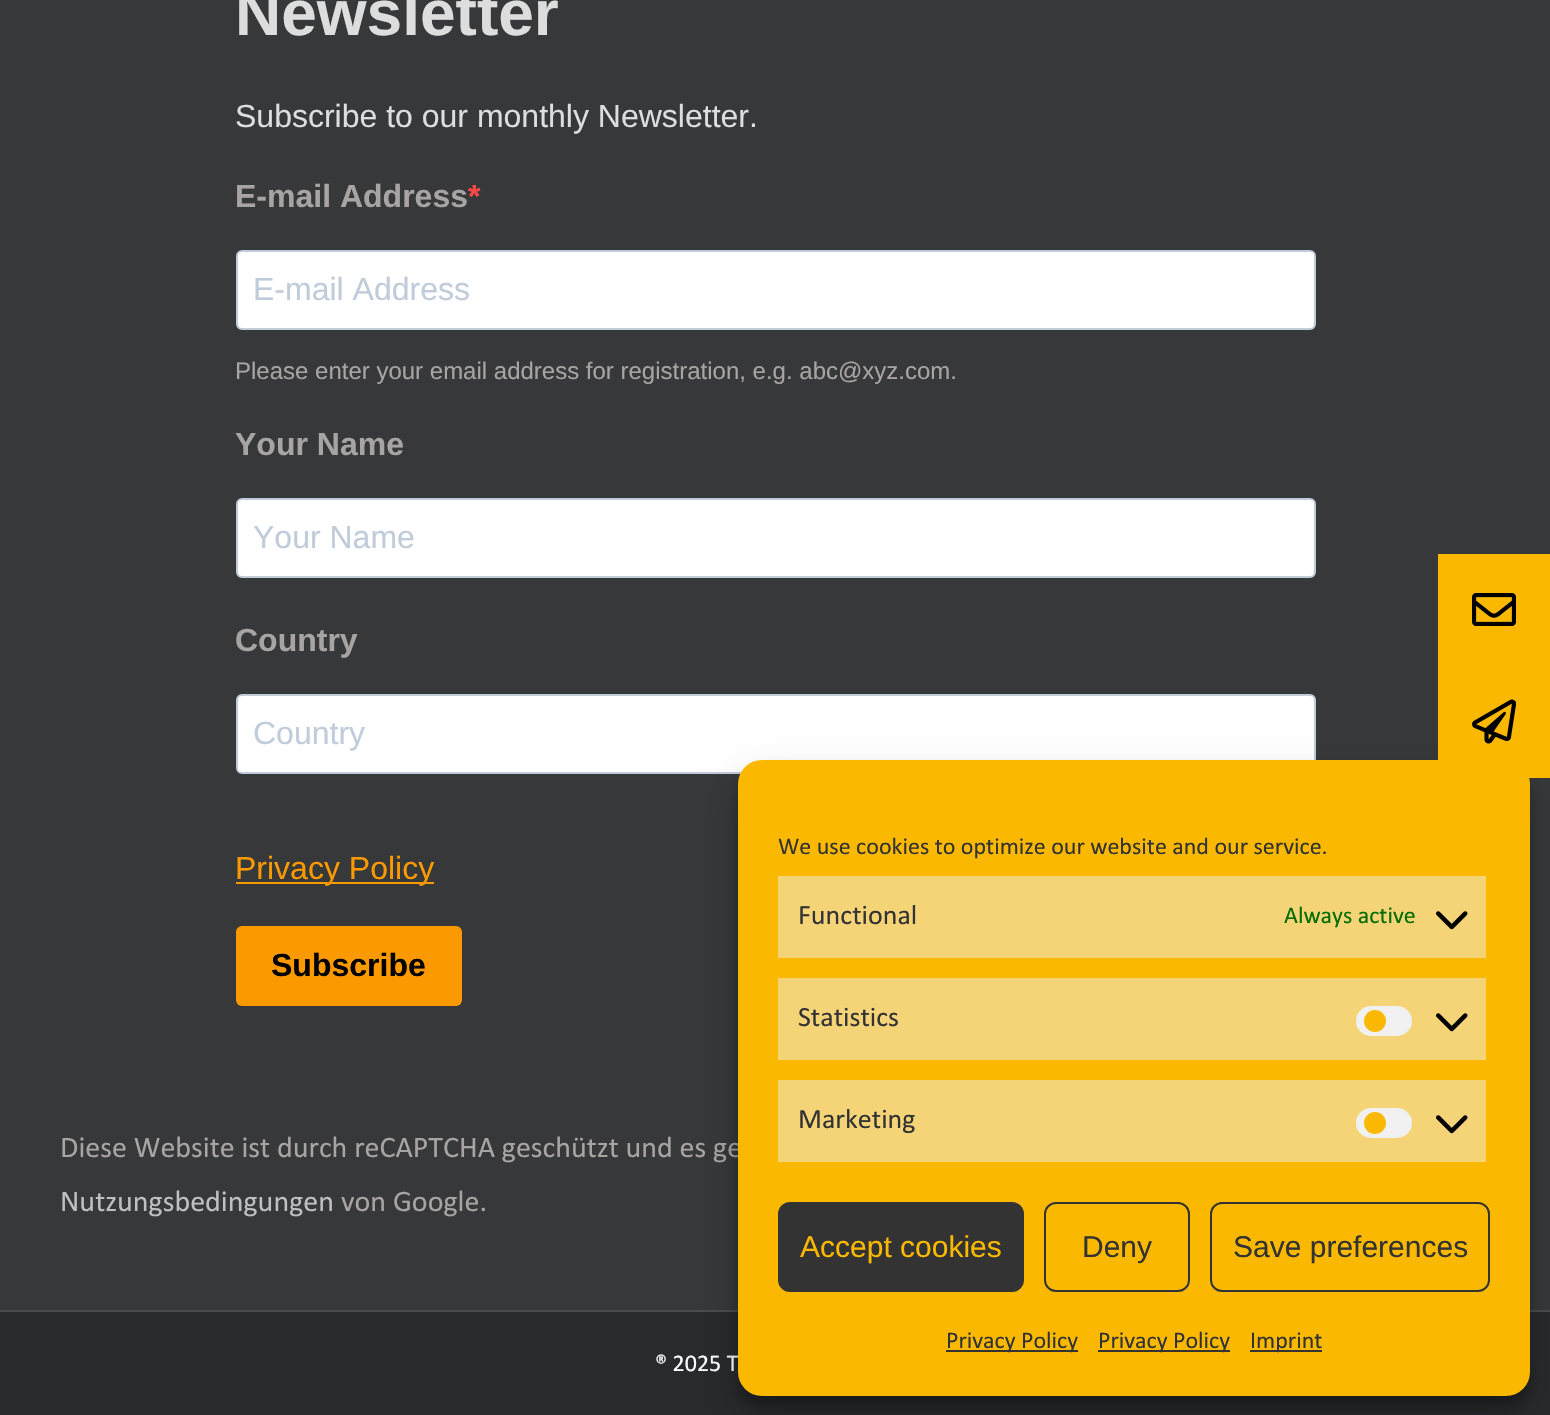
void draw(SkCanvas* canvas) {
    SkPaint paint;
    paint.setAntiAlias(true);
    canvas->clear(0xFF363839);
    SkFont font1(fontMgr->matchFamilyStyle("Liberation Sans", SkFontStyle::Bold()), 64);
    font1.setSubpixel(true);
    paint.setColor(0xFFDDDDDD);
    canvas->drawString("Newsletter", 235, 35, font1, paint);
    SkFont font2(fontMgr->matchFamilyStyle("Liberation Sans", SkFontStyle::Normal()), 32);
    font2.setSubpixel(true);
    canvas->drawString("Subscribe to our monthly Newsletter.", 235, 127, font2, paint);
    SkFont font3(fontMgr->matchFamilyStyle("Liberation Sans", SkFontStyle::Bold()), 32);
    font3.setSubpixel(true);
    paint.setColor(0xFFA9A4A4);
    canvas->drawString("E-mail Address", 235, 207, font3, paint);
    paint.setColor(0xFFFF4949);
    canvas->drawString("*", 468, 207, font3, paint);
    paint.setColor(0xFFFFFFFF);
    canvas->drawRoundRect(SkRect::MakeXYWH(237, 251, 1078, 78), 5, 5, paint);
    paint.setStyle(SkPaint::kStroke_Style);
    paint.setStrokeWidth(2);
    paint.setColor(0xFFC0CCDA);
    canvas->drawRoundRect(SkRect::MakeXYWH(237, 251, 1078, 78), 5, 5, paint);
    paint.setStyle(SkPaint::kFill_Style);
    canvas->drawString("E-mail Address", 253, 300, font2, paint);
    SkFont font4(fontMgr->matchFamilyStyle("Liberation Sans", SkFontStyle::Normal()), 24);
    font4.setSubpixel(true);
    paint.setColor(0xFFA9A4A4);
    canvas->drawString("Please enter your email address for registration, e.g. abc@xyz.com.", 235, 379, font4, paint);
    canvas->drawString("Your Name", 235, 455, font3, paint);
    paint.setColor(0xFFFFFFFF);
    canvas->drawRoundRect(SkRect::MakeXYWH(237, 499, 1078, 78), 5, 5, paint);
    paint.setStyle(SkPaint::kStroke_Style);
    paint.setColor(0xFFC0CCDA);
    canvas->drawRoundRect(SkRect::MakeXYWH(237, 499, 1078, 78), 5, 5, paint);
    paint.setStyle(SkPaint::kFill_Style);
    canvas->drawString("Your Name", 253, 548, font2, paint);
    paint.setColor(0xFFA9A4A4);
    canvas->drawString("Country", 235, 651, font3, paint);
    paint.setColor(0xFFFFFFFF);
    canvas->drawRoundRect(SkRect::MakeXYWH(237, 695, 1078, 78), 5, 5, paint);
    paint.setStyle(SkPaint::kStroke_Style);
    paint.setColor(0xFFC0CCDA);
    canvas->drawRoundRect(SkRect::MakeXYWH(237, 695, 1078, 78), 5, 5, paint);
    paint.setStyle(SkPaint::kFill_Style);
    canvas->drawString("Country", 253, 744, font2, paint);
    paint.setColor(0xFFFA9A00);
    canvas->drawRect(SkRect::MakeXYWH(236, 882, 198, 2), paint);
    canvas->drawString("Privacy Policy", 235, 879, font2, paint);
    canvas->drawRoundRect(SkRect::MakeXYWH(236, 926, 226, 80), 6, 6, paint);
    paint.setColor(0xFF000000);
    canvas->drawString("Subscribe", 271, 976, font3, paint);
    SkFont font5(fontMgr->matchFamilyStyle("Calibri", SkFontStyle::Normal()), 30);
    font5.setSubpixel(true);
    paint.setColor(0xFFA9A4A4);
    canvas->drawString("Diese Website ist durch reCAPTCHA geschützt und es ge", 60, 1157, font5, paint);
    paint.setColor(0xFFBFBFBF);
    canvas->drawString("Nutzungsbedingungen", 60, 1211, font5, paint);
    paint.setColor(0xFFA9A4A4);
    canvas->drawString("von Google.", 341, 1211, font5, paint);
    paint.setColor(0xFF282A2B);
    canvas->drawRect(SkRect::MakeXYWH(0, 1312, 1550, 103), paint);
    paint.setColor(0xFF4B4C4D);
    canvas->drawRect(SkRect::MakeXYWH(0, 1310, 1550, 2), paint);
    SkFont font6(fontMgr->matchFamilyStyle("Calibri", SkFontStyle::Normal()), 24);
    font6.setSubpixel(true);
    paint.setColor(0xFFFFFFFF);
    canvas->drawString("® 2025 T", 655, 1371, font6, paint);
    paint.setColor(0x3B000000);
    paint.setMaskFilter(SkMaskFilter::MakeBlur(kNormal_SkBlurStyle, 6));
    canvas->drawRoundRect(SkRect::MakeXYWH(738, 772, 792, 636), 24, 24, paint);
    paint.setMaskFilter(nullptr);
    paint.setColor(0x30000000);
    paint.setMaskFilter(SkMaskFilter::MakeBlur(kNormal_SkBlurStyle, 20));
    canvas->drawRoundRect(SkRect::MakeXYWH(738, 780, 792, 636), 24, 24, paint);
    paint.setMaskFilter(nullptr);
    paint.setColor(0xFFFAB800);
    canvas->drawRoundRect(SkRect::MakeXYWH(738, 760, 792, 636), 24, 24, paint);
    canvas->drawRect(SkRect::MakeXYWH(1438, 554, 112, 224), paint);
    canvas->drawImageRect(SkImages::DeferredFromEncodedData(SkData::MakeFromFileName("img1.png")), SkRect::MakeXYWH(1472, 699, 45, 45), SkSamplingOptions());
    canvas->drawImageRect(SkImages::DeferredFromEncodedData(SkData::MakeFromFileName("img2.png")), SkRect::MakeXYWH(1472, 593, 44, 33), SkSamplingOptions());
    paint.setColor(0xFF333333);
    canvas->drawString("We use cookies to optimize our website and our service.", 778, 854, font6, paint);
    paint.setColor(0xFFF5D478);
    canvas->drawRect(SkRect::MakeXYWH(778, 876, 708, 82), paint);
    SkFont font7(fontMgr->matchFamilyStyle("Calibri", SkFontStyle::Normal()), 28);
    font7.setSubpixel(true);
    paint.setColor(0xFF333333);
    canvas->drawString("Functional", 798, 924, font7, paint);
    paint.setColor(0xFF006C00);
    canvas->drawString("Always active", 1284, 923, font6, paint);
    canvas->drawImageRect(SkImages::DeferredFromEncodedData(SkData::MakeFromFileName("img3.png")), SkRect::MakeXYWH(1436, 911, 32, 19), SkSamplingOptions());
    paint.setColor(0xFFF5D478);
    canvas->drawRect(SkRect::MakeXYWH(778, 978, 708, 82), paint);
    paint.setColor(0xFF333333);
    canvas->drawString("Statistics", 798, 1026, font7, paint);
    paint.setColor(0xFFF1F1F1);
    canvas->drawRoundRect(SkRect::MakeXYWH(1356, 1006, 56, 30), 15, 15, paint);
    paint.setColor(0xFFFAB800);
    canvas->drawCircle(1375, 1021, 11, paint);
    canvas->drawImageRect(SkImages::DeferredFromEncodedData(SkData::MakeFromFileName("img3.png")), SkRect::MakeXYWH(1436, 1013, 32, 19), SkSamplingOptions());
    paint.setColor(0xFFF5D478);
    canvas->drawRect(SkRect::MakeXYWH(778, 1080, 708, 82), paint);
    paint.setColor(0xFF333333);
    canvas->drawString("Marketing", 798, 1128, font7, paint);
    paint.setColor(0xFFF1F1F1);
    canvas->drawRoundRect(SkRect::MakeXYWH(1356, 1108, 56, 30), 15, 15, paint);
    paint.setColor(0xFFFAB800);
    canvas->drawCircle(1375, 1123, 11, paint);
    canvas->drawImageRect(SkImages::DeferredFromEncodedData(SkData::MakeFromFileName("img3.png")), SkRect::MakeXYWH(1436, 1115, 32, 19), SkSamplingOptions());
    paint.setColor(0xFF333333);
    canvas->drawRoundRect(SkRect::MakeXYWH(779, 1203, 244, 88), 11, 11, paint);
    paint.setStyle(SkPaint::kStroke_Style);
    canvas->drawRoundRect(SkRect::MakeXYWH(779, 1203, 244, 88), 11, 11, paint);
    SkFont font8(fontMgr->matchFamilyStyle("Liberation Sans", SkFontStyle::Normal()), 30);
    font8.setSubpixel(true);
    paint.setStyle(SkPaint::kFill_Style);
    paint.setColor(0xFFFAB800);
    canvas->drawString("Accept cookies", 800, 1257, font8, paint);
    paint.setStyle(SkPaint::kStroke_Style);
    paint.setColor(0xFF333333);
    canvas->drawRoundRect(SkRect::MakeXYWH(1045, 1203, 144, 88), 11, 11, paint);
    paint.setStyle(SkPaint::kFill_Style);
    canvas->drawString("Deny", 1082, 1257, font8, paint);
    paint.setStyle(SkPaint::kStroke_Style);
    canvas->drawRoundRect(SkRect::MakeXYWH(1211, 1203, 278, 88), 11, 11, paint);
    paint.setStyle(SkPaint::kFill_Style);
    canvas->drawString("Save preferences", 1233, 1257, font8, paint);
    canvas->drawRect(SkRect::MakeXYWH(946, 1350, 132, 2), paint);
    canvas->drawString("Privacy Policy", 946, 1348, font6, paint);
    canvas->drawRect(SkRect::MakeXYWH(1098, 1350, 132, 2), paint);
    canvas->drawString("Privacy Policy", 1098, 1348, font6, paint);
    canvas->drawRect(SkRect::MakeXYWH(1250, 1350, 72, 2), paint);
    canvas->drawString("Imprint", 1250, 1348, font6, paint);
}
